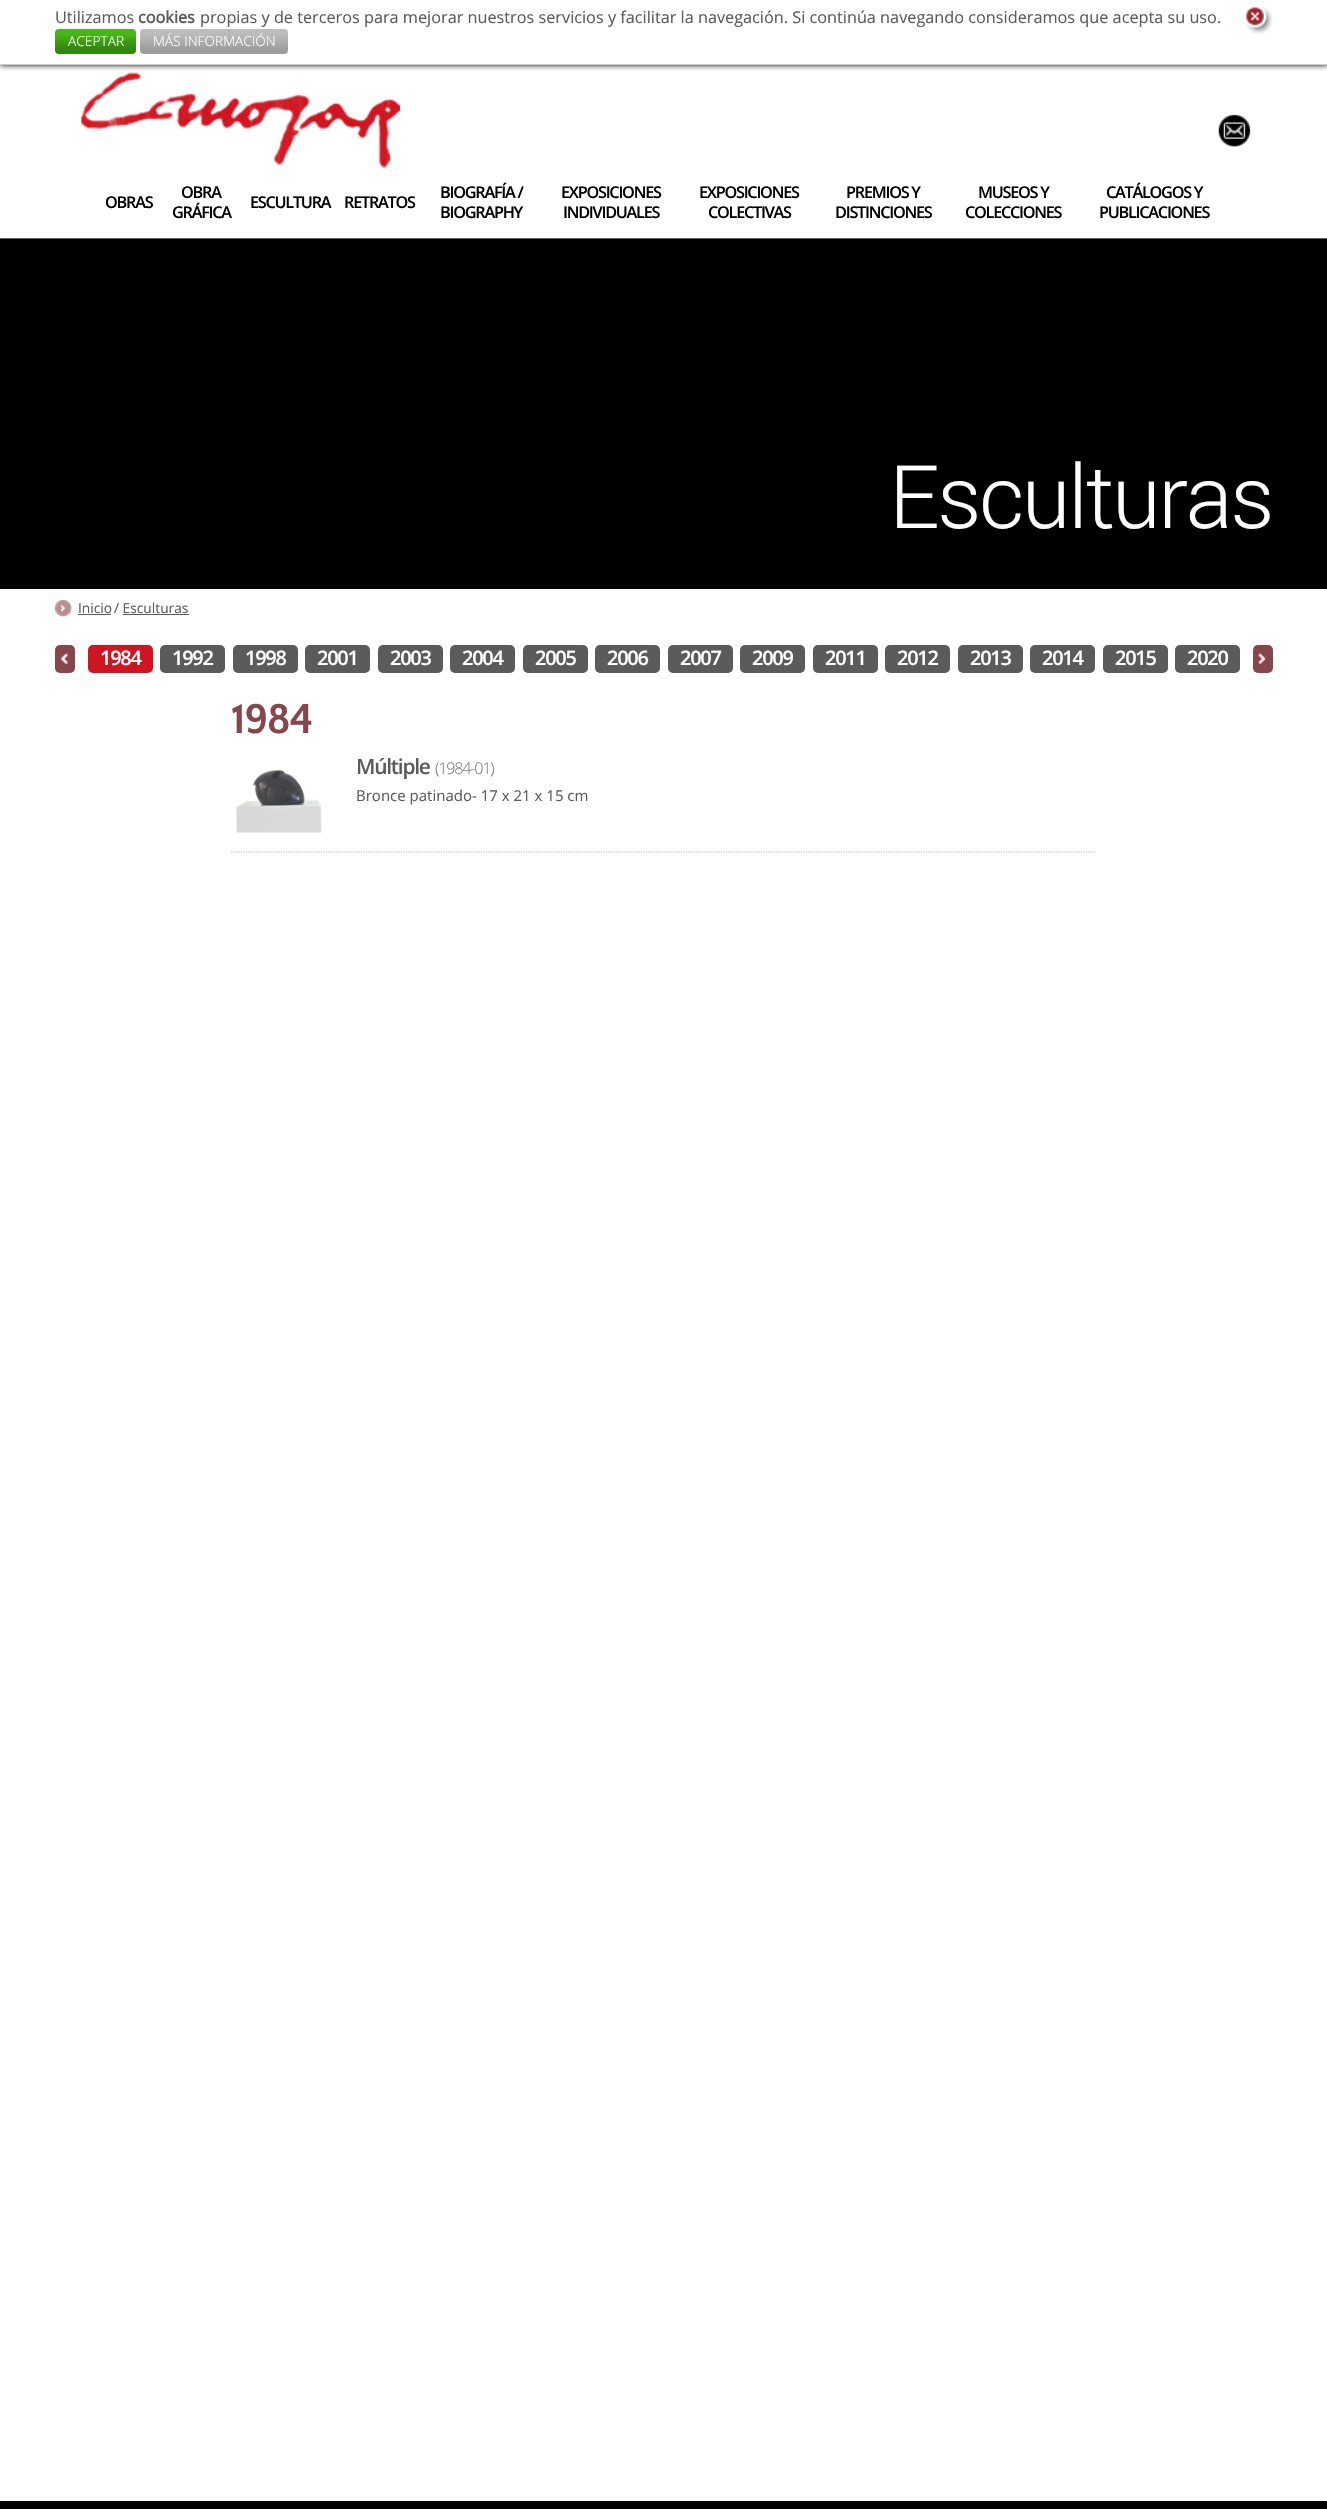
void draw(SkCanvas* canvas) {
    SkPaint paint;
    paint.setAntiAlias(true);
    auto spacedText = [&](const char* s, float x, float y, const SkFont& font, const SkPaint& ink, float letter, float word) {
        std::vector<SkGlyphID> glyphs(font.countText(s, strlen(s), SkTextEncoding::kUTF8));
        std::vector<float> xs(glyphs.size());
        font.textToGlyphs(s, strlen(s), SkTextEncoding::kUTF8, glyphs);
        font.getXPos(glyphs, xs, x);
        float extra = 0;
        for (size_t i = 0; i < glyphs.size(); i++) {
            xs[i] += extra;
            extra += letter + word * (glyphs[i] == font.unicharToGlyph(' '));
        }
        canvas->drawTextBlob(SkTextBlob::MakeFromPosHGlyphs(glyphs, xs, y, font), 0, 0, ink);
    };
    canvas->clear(0xFFFFFFFF);
    canvas->drawImageRect(SkImages::DeferredFromEncodedData(SkData::MakeFromFileName("img3.png")), SkRect::MakeXYWH(81, 72, 320, 96), SkSamplingOptions());
    canvas->save();
    canvas->clipRect(SkRect::MakeXYWH(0, 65, 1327, 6));
    paint.setColor(0xFF000000);
    paint.setMaskFilter(SkMaskFilter::MakeBlur(kNormal_SkBlurStyle, 3));
    canvas->drawRect(SkRect::MakeXYWH(0, 0, 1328, 65), paint);
    paint.setMaskFilter(nullptr);
    canvas->restore();
    paint.setColor(0xFFCCCCCC);
    canvas->drawRect(SkRect::MakeXYWH(0, 64, 1327, 1), paint);
    SkFont font1(fontMgr->matchFamilyStyle("Open Sans", SkFontStyle::Normal()), 16.25f);
    font1.setSubpixel(true);
    paint.setColor(0xFF5B5B5B);
    canvas->drawString("Utilizamos", 55, 23, font1, paint);
    SkFont font2(fontMgr->matchFamilyStyle("Open Sans", SkFontStyle::Bold()), 16.25f);
    font2.setSubpixel(true);
    canvas->drawString("cookies", 138, 23, font2, paint);
    canvas->drawString("propias y de terceros para mejorar nuestros servicios y facilitar la navegación. Si continúa navegando consideramos que acepta su uso.", 200, 23, font1, paint);
    {
        const SkColor colors[] = {0xFF48B619, 0xFF32850E};
        const float stops[] = {0.2f, 0.8f};
        const SkPoint ends[] = {{96, 29}, {96, 54}};
        paint.setShader(SkGradientShader::MakeLinear(ends, colors, stops, 2, SkTileMode::kClamp));
        paint.setAlpha(255);
    }
    canvas->drawRoundRect(SkRect::MakeXYWH(55, 29, 81, 25), 4, 4, paint);
    SkFont font3(fontMgr->matchFamilyStyle("Open Sans", SkFontStyle(300, SkFontStyle::kNormal_Width, SkFontStyle::kUpright_Slant)), 13.75f);
    font3.setSubpixel(true);
    paint.setShader(nullptr);
    paint.setColor(0xFFFFFFFF);
    canvas->drawString("ACEPTAR", 68, 46, font3, paint);
    {
        const SkColor colors[] = {0xFFBDBCBC, 0xFF9E9E9E};
        const float stops[] = {0.2f, 0.8f};
        const SkPoint ends[] = {{214, 29}, {214, 54}};
        paint.setShader(SkGradientShader::MakeLinear(ends, colors, stops, 2, SkTileMode::kClamp));
        paint.setAlpha(255);
    }
    canvas->drawRoundRect(SkRect::MakeXYWH(140, 29, 148, 25), 4, 4, paint);
    paint.setShader(nullptr);
    paint.setColor(0xFFFFFFFF);
    canvas->drawString("MÁS INFORMACIÓN", 153, 46, font3, paint);
    canvas->drawImageRect(SkImages::DeferredFromEncodedData(SkData::MakeFromFileName("img1.png")), SkRect::MakeXYWH(1245, 6, 28, 28), SkSamplingOptions());
    paint.setColor(0xFF606060);
    canvas->drawRect(SkRect::MakeXYWH(0, 238, 1327, 1), paint);
    canvas->drawImageRect(SkImages::DeferredFromEncodedData(SkData::MakeFromFileName("img2.png")), SkRect::MakeXYWH(1218, 114, 33, 33), SkSamplingOptions());
    SkFont font4(fontMgr->matchFamilyStyle("Open Sans", SkFontStyle(600, SkFontStyle::kNormal_Width, SkFontStyle::kUpright_Slant)), 16.25f);
    font4.setSubpixel(true);
    paint.setColor(0xFF000000);
    spacedText("OBRAS", 105, 208, font4, paint, -1.25f, 0);
    spacedText("OBRA", 181, 198, font4, paint, -1.25f, 0);
    spacedText("GRÁFICA", 172, 218, font4, paint, -1.25f, 0);
    spacedText("ESCULTURA", 250, 208, font4, paint, -1.25f, 0);
    spacedText("RETRATOS", 344, 208, font4, paint, -1.25f, 0);
    spacedText("BIOGRAFÍA /", 440, 198, font4, paint, -1.25f, 0);
    spacedText("BIOGRAPHY", 440, 218, font4, paint, -1.25f, 0);
    spacedText("EXPOSICIONES", 561, 198, font4, paint, -1.25f, 0);
    spacedText("INDIVIDUALES", 563, 218, font4, paint, -1.25f, 0);
    spacedText("EXPOSICIONES", 699, 198, font4, paint, -1.25f, 0);
    spacedText("COLECTIVAS", 708, 218, font4, paint, -1.25f, 0);
    spacedText("PREMIOS Y", 846, 198, font4, paint, -1.25f, 0);
    spacedText("DISTINCIONES", 835, 218, font4, paint, -1.25f, 0);
    spacedText("MUSEOS Y", 978, 198, font4, paint, -1.25f, 0);
    spacedText("COLECCIONES", 965, 218, font4, paint, -1.25f, 0);
    spacedText("CATÁLOGOS Y", 1106, 198, font4, paint, -1.25f, 0);
    spacedText("PUBLICACIONES", 1099, 218, font4, paint, -1.25f, 0);
    canvas->drawRect(SkRect::MakeXYWH(0, 239, 1327, 350), paint);
    SkFont font5(fontMgr->matchFamilyStyle("Roboto", SkFontStyle(300, SkFontStyle::kNormal_Width, SkFontStyle::kUpright_Slant)), 87.5f);
    font5.setSubpixel(true);
    paint.setColor(0xFFFFFFFF);
    spacedText("Esculturas", 889, 528, font5, paint, -2.5f, 0);
    canvas->drawImageRect(SkImages::DeferredFromEncodedData(SkData::MakeFromFileName("img4.png")), SkRect::MakeXYWH(55, 600, 17, 17), SkSamplingOptions());
    SkFont font6(fontMgr->matchFamilyStyle("Open Sans", SkFontStyle::Normal()), 13.75f);
    font6.setSubpixel(true);
    paint.setColor(0xFF5B5B5B);
    canvas->drawString("Inicio", 78, 613, font6, paint);
    canvas->drawRect(SkRect::MakeXYWH(78, 614, 33, 1), paint);
    canvas->drawString("/ Esculturas", 114, 613, font6, paint);
    canvas->drawRect(SkRect::MakeXYWH(123, 614, 66, 1), paint);
    paint.setColor(0xFF86464B);
    canvas->drawRoundRect(SkRect::MakeXYWH(55, 645, 20, 28), 5, 5, paint);
    canvas->drawImageRect(SkImages::DeferredFromEncodedData(SkData::MakeFromFileName("img5.png")), SkRect::MakeXYWH(61, 653, 7, 11), SkSamplingOptions());
    paint.setColor(0xFFCF1521);
    canvas->drawRoundRect(SkRect::MakeXYWH(88, 645, 65, 28), 5, 5, paint);
    SkFont font7(fontMgr->matchFamilyStyle("Open Sans", SkFontStyle(600, SkFontStyle::kNormal_Width, SkFontStyle::kUpright_Slant)), 20);
    font7.setSubpixel(true);
    paint.setColor(0xFFFFFFFF);
    spacedText("1984", 100, 665, font7, paint, -1.25f, 0);
    paint.setColor(0xFF5B5B5B);
    canvas->drawRoundRect(SkRect::MakeXYWH(160, 645, 65, 28), 5, 5, paint);
    paint.setColor(0xFFFFFFFF);
    spacedText("1992", 172, 665, font7, paint, -1.25f, 0);
    paint.setColor(0xFF5B5B5B);
    canvas->drawRoundRect(SkRect::MakeXYWH(233, 645, 65, 28), 5, 5, paint);
    paint.setColor(0xFFFFFFFF);
    spacedText("1998", 245, 665, font7, paint, -1.25f, 0);
    paint.setColor(0xFF5B5B5B);
    canvas->drawRoundRect(SkRect::MakeXYWH(305, 645, 65, 28), 5, 5, paint);
    paint.setColor(0xFFFFFFFF);
    spacedText("2001", 317, 665, font7, paint, -1.25f, 0);
    paint.setColor(0xFF5B5B5B);
    canvas->drawRoundRect(SkRect::MakeXYWH(378, 645, 65, 28), 5, 5, paint);
    paint.setColor(0xFFFFFFFF);
    spacedText("2003", 390, 665, font7, paint, -1.25f, 0);
    paint.setColor(0xFF5B5B5B);
    canvas->drawRoundRect(SkRect::MakeXYWH(450, 645, 65, 28), 5, 5, paint);
    paint.setColor(0xFFFFFFFF);
    spacedText("2004", 462, 665, font7, paint, -1.25f, 0);
    paint.setColor(0xFF5B5B5B);
    canvas->drawRoundRect(SkRect::MakeXYWH(523, 645, 65, 28), 5, 5, paint);
    paint.setColor(0xFFFFFFFF);
    spacedText("2005", 535, 665, font7, paint, -1.25f, 0);
    paint.setColor(0xFF5B5B5B);
    canvas->drawRoundRect(SkRect::MakeXYWH(595, 645, 65, 28), 5, 5, paint);
    paint.setColor(0xFFFFFFFF);
    spacedText("2006", 607, 665, font7, paint, -1.25f, 0);
    paint.setColor(0xFF5B5B5B);
    canvas->drawRoundRect(SkRect::MakeXYWH(668, 645, 65, 28), 5, 5, paint);
    paint.setColor(0xFFFFFFFF);
    spacedText("2007", 680, 665, font7, paint, -1.25f, 0);
    paint.setColor(0xFF5B5B5B);
    canvas->drawRoundRect(SkRect::MakeXYWH(740, 645, 65, 28), 5, 5, paint);
    paint.setColor(0xFFFFFFFF);
    spacedText("2009", 752, 665, font7, paint, -1.25f, 0);
    paint.setColor(0xFF5B5B5B);
    canvas->drawRoundRect(SkRect::MakeXYWH(813, 645, 65, 28), 5, 5, paint);
    paint.setColor(0xFFFFFFFF);
    spacedText("2011", 825, 665, font7, paint, -1.25f, 0);
    paint.setColor(0xFF5B5B5B);
    canvas->drawRoundRect(SkRect::MakeXYWH(885, 645, 65, 28), 5, 5, paint);
    paint.setColor(0xFFFFFFFF);
    spacedText("2012", 897, 665, font7, paint, -1.25f, 0);
    paint.setColor(0xFF5B5B5B);
    canvas->drawRoundRect(SkRect::MakeXYWH(958, 645, 65, 28), 5, 5, paint);
    paint.setColor(0xFFFFFFFF);
    spacedText("2013", 970, 665, font7, paint, -1.25f, 0);
    paint.setColor(0xFF5B5B5B);
    canvas->drawRoundRect(SkRect::MakeXYWH(1030, 645, 65, 28), 5, 5, paint);
    paint.setColor(0xFFFFFFFF);
    spacedText("2014", 1042, 665, font7, paint, -1.25f, 0);
    paint.setColor(0xFF5B5B5B);
    canvas->drawRoundRect(SkRect::MakeXYWH(1103, 645, 65, 28), 5, 5, paint);
    paint.setColor(0xFFFFFFFF);
    spacedText("2015", 1115, 665, font7, paint, -1.25f, 0);
    paint.setColor(0xFF5B5B5B);
    canvas->drawRoundRect(SkRect::MakeXYWH(1175, 645, 65, 28), 5, 5, paint);
    paint.setColor(0xFFFFFFFF);
    spacedText("2020", 1187, 665, font7, paint, -1.25f, 0);
    paint.setColor(0xFF86464B);
    canvas->drawRoundRect(SkRect::MakeXYWH(1253, 645, 20, 28), 5, 5, paint);
    canvas->drawImageRect(SkImages::DeferredFromEncodedData(SkData::MakeFromFileName("img6.png")), SkRect::MakeXYWH(1258, 653, 8, 11), SkSamplingOptions());
    SkFont font8(fontMgr->matchFamilyStyle("Quattrocento Sans", SkFontStyle::Bold()), 44);
    font8.setSubpixel(true);
    spacedText("1984", 231, 733, font8, paint, -1.25f, 0);
    paint.setStyle(SkPaint::kStroke_Style);
    paint.setStrokeWidth(1.2f);
    paint.setColor(0xFFBAB7B7);
    paint.setPathEffect(SkDashPathEffect::Make({{1.25f, 1.25f}}, 0));
    canvas->drawPath(SkPathBuilder().moveTo(231, 852).lineTo(1096, 852).detach(), paint);
    paint.setPathEffect(nullptr);
    canvas->drawImageRect(SkImages::DeferredFromEncodedData(SkData::MakeFromFileName("img7.png")), SkRect::MakeXYWH(236, 770, 86, 63), SkSamplingOptions());
    SkFont font9(fontMgr->matchFamilyStyle("Open Sans", SkFontStyle(600, SkFontStyle::kNormal_Width, SkFontStyle::kUpright_Slant)), 21);
    font9.setSubpixel(true);
    paint.setStyle(SkPaint::kFill_Style);
    paint.setColor(0xFF5B5B5B);
    spacedText("Múltiple", 356, 774, font9, paint, -1.25f, 0);
    SkFont font10(fontMgr->matchFamilyStyle("Open Sans", SkFontStyle(300, SkFontStyle::kNormal_Width, SkFontStyle::kUpright_Slant)), 16.25f);
    font10.setSubpixel(true);
    paint.setColor(0xFF837F7F);
    spacedText("(1984-01)", 435, 774, font10, paint, -1.25f, 0);
    SkFont font11(fontMgr->matchFamilyStyle("Open Sans", SkFontStyle::Normal()), 15);
    font11.setSubpixel(true);
    paint.setColor(0xFF5B5B5B);
    canvas->drawString("Bronce patinado- 17 x 21 x 15 cm", 356, 801, font11, paint);
    paint.setColor(0xFF000000);
    canvas->drawRect(SkRect::MakeXYWH(0, 2501, 1327, 8), paint);
}
